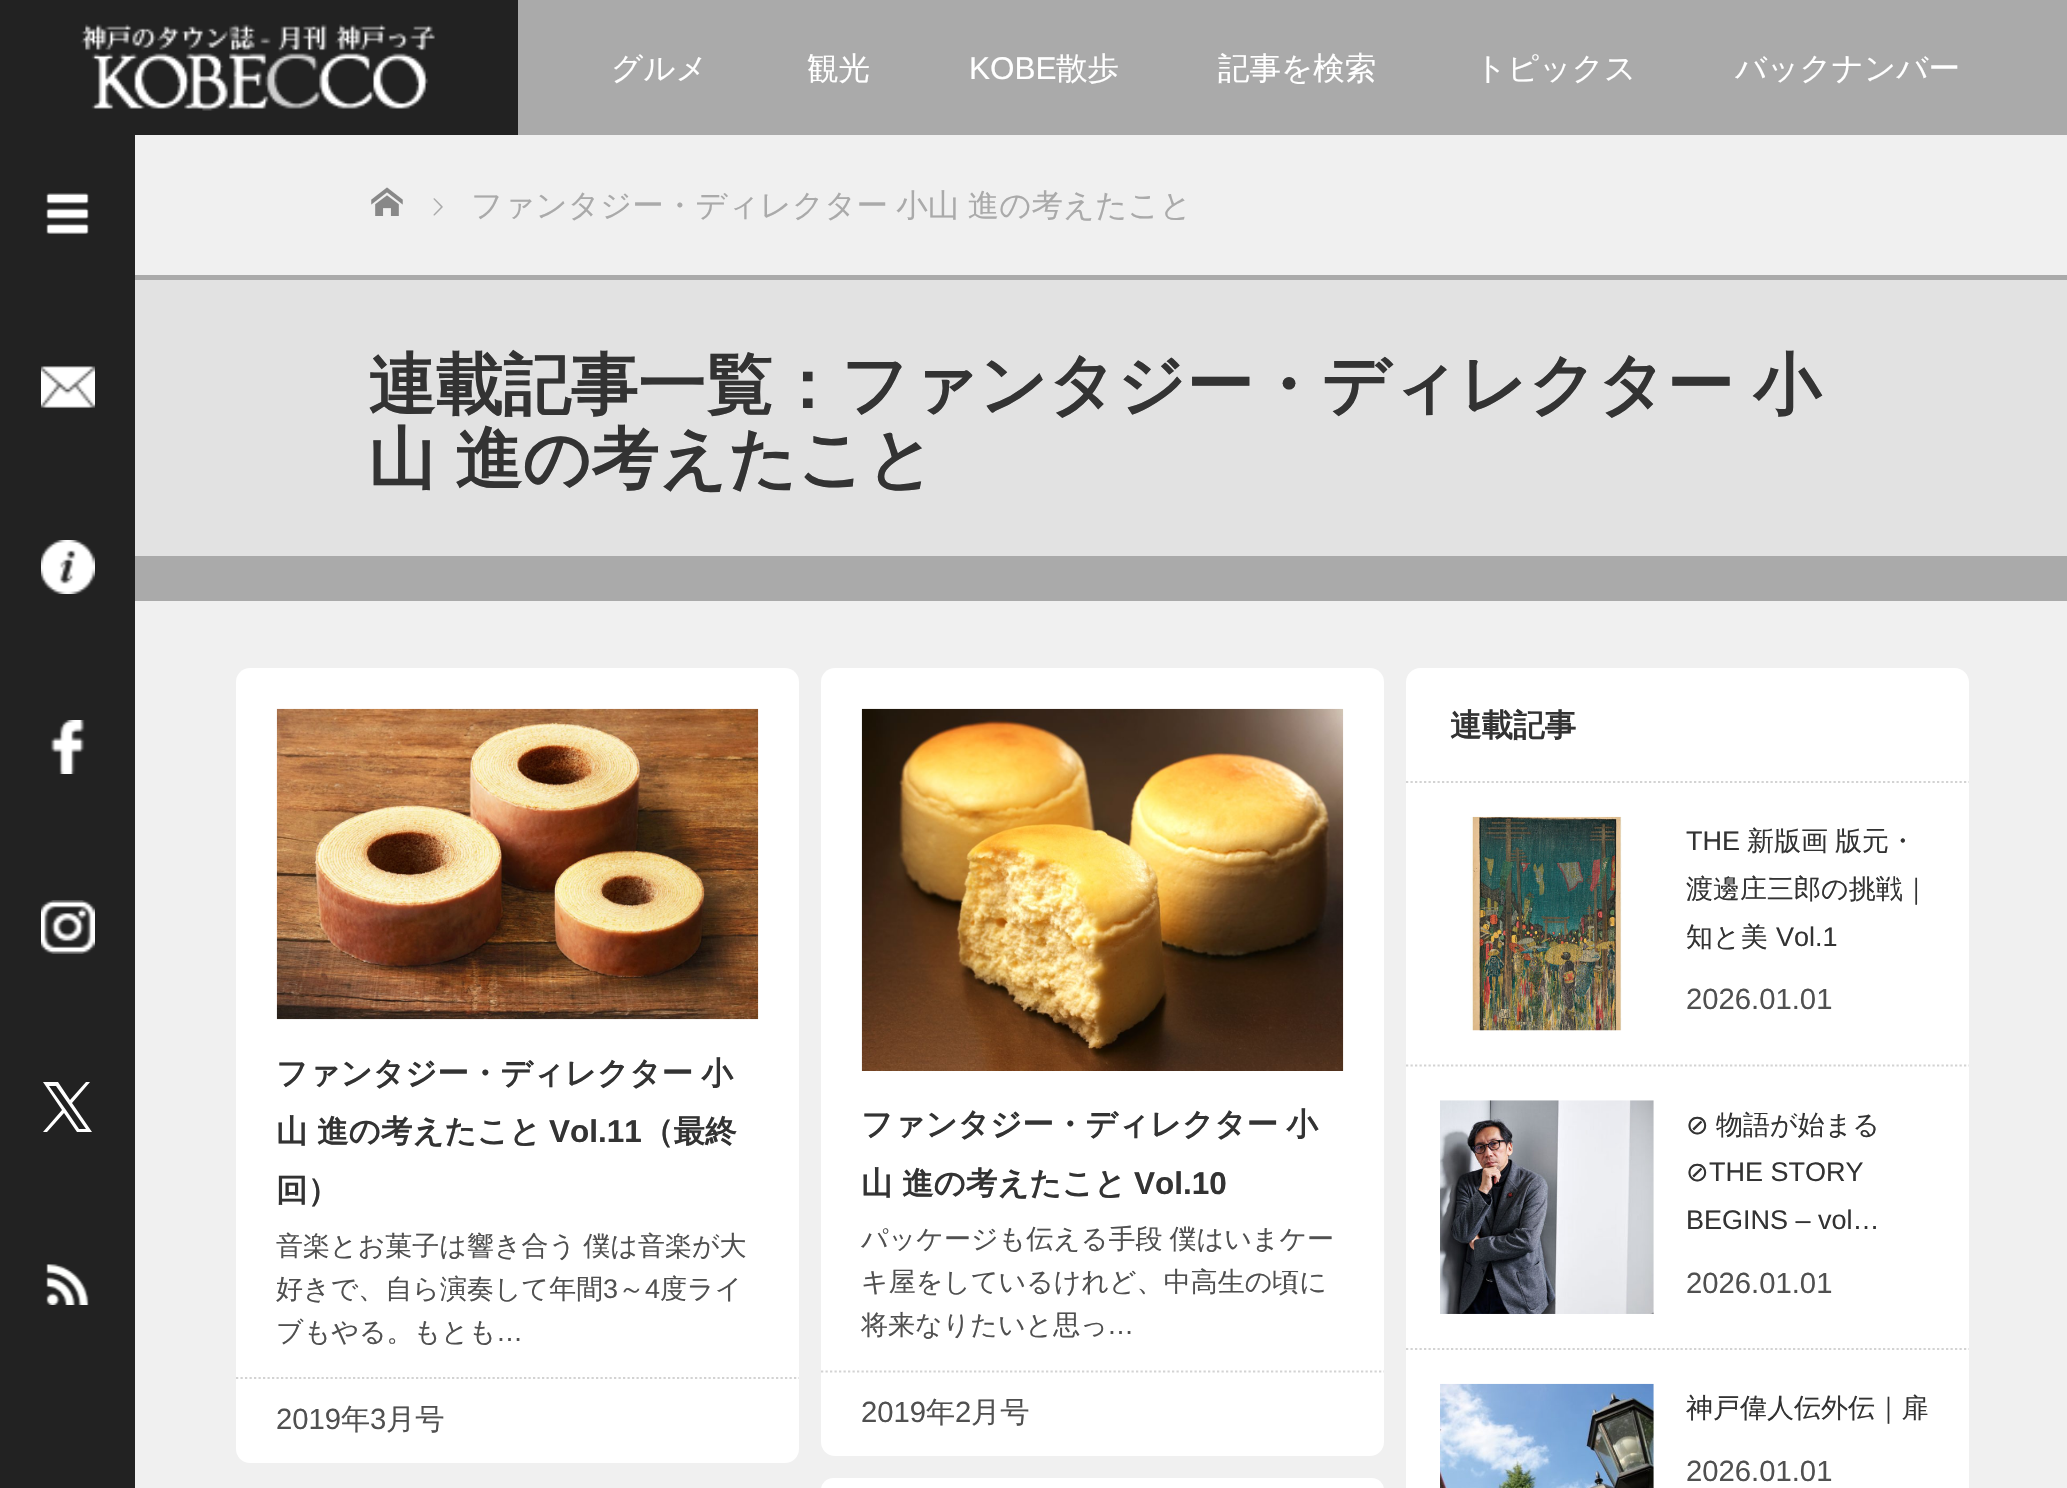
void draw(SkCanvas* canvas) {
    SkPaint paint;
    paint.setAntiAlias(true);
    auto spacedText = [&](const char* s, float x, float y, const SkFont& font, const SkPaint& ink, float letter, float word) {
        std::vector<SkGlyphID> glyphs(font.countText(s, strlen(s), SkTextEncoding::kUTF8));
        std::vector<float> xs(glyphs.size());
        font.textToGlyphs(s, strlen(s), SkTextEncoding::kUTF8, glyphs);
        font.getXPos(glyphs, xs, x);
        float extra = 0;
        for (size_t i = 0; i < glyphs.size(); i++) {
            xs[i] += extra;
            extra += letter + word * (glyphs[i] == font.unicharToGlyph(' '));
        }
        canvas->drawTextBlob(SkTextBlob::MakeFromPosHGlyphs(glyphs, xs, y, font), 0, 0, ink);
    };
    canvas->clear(0xFFF0F0F0);
    paint.setColor(0xFF222222);
    canvas->drawRect(SkRect::MakeXYWH(0, 0, 518, 135), paint);
    canvas->drawImageRect(SkImages::DeferredFromEncodedData(SkData::MakeFromFileName("img1.png")), SkRect::MakeXYWH(80, 24, 355, 87), SkSamplingOptions());
    paint.setColor(0xFFAAAAAA);
    canvas->drawRect(SkRect::MakeXYWH(518, 0, 1549, 135), paint);
    SkFont font1(fontMgr->matchFamilyStyle("WenQuanYi Zen Hei", SkFontStyle(500, SkFontStyle::kNormal_Width, SkFontStyle::kUpright_Slant)), 31.5f);
    font1.setSubpixel(true);
    paint.setColor(0xFFFFFFFF);
    canvas->drawString("グルメ", 611, 79, font1, paint);
    canvas->drawString("観光", 807, 79, font1, paint);
    SkFont font2(fontMgr->matchFamilyStyle("Liberation Sans", SkFontStyle::Normal()), 31.5f);
    font2.setSubpixel(true);
    canvas->drawString("KOBE", 969, 79, font2, paint);
    canvas->drawString("散歩", 1056, 79, font1, paint);
    canvas->drawString("記事を検索", 1218, 79, font1, paint);
    canvas->drawString("トピックス", 1475, 79, font1, paint);
    canvas->drawString("バックナンバー", 1735, 79, font1, paint);
    paint.setColor(0xFF222222);
    canvas->drawRect(SkRect::MakeXYWH(0, 135, 135, 1353), paint);
    canvas->drawImageRect(SkImages::DeferredFromEncodedData(SkData::MakeFromFileName("img2.png")), SkRect::MakeXYWH(46, 193, 43, 41), SkSamplingOptions());
    canvas->drawImageRect(SkImages::DeferredFromEncodedData(SkData::MakeFromFileName("img3.png")), SkRect::MakeXYWH(41, 366, 54, 42), SkSamplingOptions());
    canvas->drawImageRect(SkImages::DeferredFromEncodedData(SkData::MakeFromFileName("img4.png")), SkRect::MakeXYWH(41, 540, 54, 54), SkSamplingOptions());
    canvas->drawImageRect(SkImages::DeferredFromEncodedData(SkData::MakeFromFileName("img5.png")), SkRect::MakeXYWH(50, 720, 35, 54), SkSamplingOptions());
    canvas->drawImageRect(SkImages::DeferredFromEncodedData(SkData::MakeFromFileName("img6.png")), SkRect::MakeXYWH(41, 900, 54, 54), SkSamplingOptions());
    paint.setColor(0xFFFFFFFF);
    canvas->drawPath(SkPathBuilder().moveTo(72, 1103).lineTo(90, 1082).lineTo(86, 1082).lineTo(70, 1100).lineTo(58, 1082).lineTo(43, 1082).lineTo(62, 1110).lineTo(43, 1132).lineTo(47, 1132).lineTo(64, 1113).lineTo(77, 1132).lineTo(92, 1132).close().moveTo(66, 1110).lineTo(49, 1086).lineTo(56, 1086).lineTo(86, 1129).lineTo(79, 1129).close().detach(), paint);
    canvas->drawImageRect(SkImages::DeferredFromEncodedData(SkData::MakeFromFileName("img7.png")), SkRect::MakeXYWH(46, 1264, 43, 41), SkSamplingOptions());
    canvas->drawImageRect(SkImages::DeferredFromEncodedData(SkData::MakeFromFileName("img8.png")), SkRect::MakeXYWH(371, 187, 32, 29), SkSamplingOptions());
    canvas->drawImageRect(SkImages::DeferredFromEncodedData(SkData::MakeFromFileName("img9.png")), SkRect::MakeXYWH(433, 198, 10, 18), SkSamplingOptions());
    paint.setColor(0xFFAAAAAA);
    spacedText("ファンタジー・ディレクター 小山 進の考えたこと", 471, 216, font1, paint, 0, -1);
    paint.setColor(0xFFE2E2E2);
    canvas->drawRect(SkRect::MakeXYWH(135, 280, 1932, 276), paint);
    paint.setColor(0xFFAAAAAA);
    canvas->drawRect(SkRect::MakeXYWH(135, 275, 1932, 5), paint);
    SkFont font3(fontMgr->matchFamilyStyle("WenQuanYi Zen Hei", SkFontStyle::Bold()), 67.5f);
    font3.setSubpixel(true);
    paint.setColor(0xFF333333);
    spacedText("連載記事一覧：ファンタジー・ディレクター 小", 368, 408, font3, paint, 0, -1);
    spacedText("山 進の考えたこと", 368, 482, font3, paint, 0, -1);
    paint.setColor(0xFFAAAAAA);
    canvas->drawRect(SkRect::MakeXYWH(135, 556, 1932, 45), paint);
    paint.setColor(0xFFFFFFFF);
    canvas->drawRoundRect(SkRect::MakeXYWH(236, 668, 563, 795), 14, 14, paint);
    canvas->drawImageRect(SkImages::DeferredFromEncodedData(SkData::MakeFromFileName("img10.png")), SkRect::MakeXYWH(276, 708, 483, 312), SkSamplingOptions());
    SkFont font4(fontMgr->matchFamilyStyle("WenQuanYi Zen Hei", SkFontStyle::Bold()), 31.5f);
    font4.setSubpixel(true);
    paint.setColor(0xFF333333);
    spacedText("ファンタジー・ディレクター 小", 276, 1084, font4, paint, 0, -1);
    canvas->drawString("山 進の考えたこと", 276, 1142, font4, paint);
    SkFont font5(fontMgr->matchFamilyStyle("Liberation Sans", SkFontStyle::Bold()), 31.5f);
    font5.setSubpixel(true);
    canvas->drawString("Vol.11", 549, 1142, font5, paint);
    canvas->drawString("（最終", 642, 1142, font4, paint);
    canvas->drawString("回）", 276, 1201, font4, paint);
    SkFont font6(fontMgr->matchFamilyStyle("WenQuanYi Zen Hei", SkFontStyle(500, SkFontStyle::kNormal_Width, SkFontStyle::kUpright_Slant)), 27);
    font6.setSubpixel(true);
    paint.setColor(0xFF505050);
    spacedText("音楽とお菓子は響き合う 僕は音楽が大", 276, 1255, font6, paint, 0, -1);
    canvas->drawString("好きで、自ら演奏して年間", 276, 1298, font6, paint);
    SkFont font7(fontMgr->matchFamilyStyle("Liberation Sans", SkFontStyle::Normal()), 27);
    font7.setSubpixel(true);
    canvas->drawString("3", 603, 1298, font7, paint);
    canvas->drawString("～", 618, 1298, font6, paint);
    canvas->drawString("4", 645, 1298, font7, paint);
    canvas->drawString("度ライ", 660, 1298, font6, paint);
    canvas->drawString("ブもやる。もとも", 276, 1341, font6, paint);
    canvas->drawString("…", 496, 1341, font7, paint);
    paint.setStyle(SkPaint::kStroke_Style);
    paint.setStrokeWidth(2.2f);
    paint.setColor(0xFFD3D3D3);
    paint.setPathEffect(SkDashPathEffect::Make({{2.25f, 2.25f}}, 0));
    canvas->drawPath(SkPathBuilder().moveTo(236, 1378).lineTo(799, 1378).detach(), paint);
    paint.setPathEffect(nullptr);
    SkFont font8(fontMgr->matchFamilyStyle("Liberation Sans", SkFontStyle::Normal()), 29.25f);
    font8.setSubpixel(true);
    paint.setStyle(SkPaint::kFill_Style);
    paint.setColor(0xFF505050);
    canvas->drawString("2019", 276, 1429, font8, paint);
    SkFont font9(fontMgr->matchFamilyStyle("WenQuanYi Zen Hei", SkFontStyle(500, SkFontStyle::kNormal_Width, SkFontStyle::kUpright_Slant)), 29.25f);
    font9.setSubpixel(true);
    canvas->drawString("年", 341, 1429, font9, paint);
    canvas->drawString("3", 370, 1429, font8, paint);
    canvas->drawString("月号", 386, 1429, font9, paint);
    paint.setColor(0xFFFFFFFF);
    canvas->drawRoundRect(SkRect::MakeXYWH(821, 668, 563, 788), 14, 14, paint);
    canvas->drawImageRect(SkImages::DeferredFromEncodedData(SkData::MakeFromFileName("img11.png")), SkRect::MakeXYWH(861, 708, 483, 363), SkSamplingOptions());
    paint.setColor(0xFF333333);
    spacedText("ファンタジー・ディレクター 小", 861, 1135, font4, paint, 0, -1);
    canvas->drawString("山 進の考えたこと", 861, 1194, font4, paint);
    canvas->drawString("Vol.10", 1134, 1194, font5, paint);
    paint.setColor(0xFF505050);
    spacedText("パッケージも伝える手段 僕はいまケー", 861, 1248, font6, paint, 0, -1);
    canvas->drawString("キ屋をしているけれど、中高生の頃に", 861, 1291, font6, paint);
    canvas->drawString("将来なりたいと思っ", 861, 1334, font6, paint);
    canvas->drawString("…", 1107, 1334, font7, paint);
    paint.setStyle(SkPaint::kStroke_Style);
    paint.setColor(0xFFD3D3D3);
    paint.setPathEffect(SkDashPathEffect::Make({{2.25f, 2.25f}}, 0));
    canvas->drawPath(SkPathBuilder().moveTo(821, 1371.5f).lineTo(1384, 1371.5f).detach(), paint);
    paint.setPathEffect(nullptr);
    paint.setStyle(SkPaint::kFill_Style);
    paint.setColor(0xFF505050);
    canvas->drawString("2019", 861, 1422, font8, paint);
    canvas->drawString("年", 926, 1422, font9, paint);
    canvas->drawString("2", 955, 1422, font8, paint);
    canvas->drawString("月号", 971, 1422, font9, paint);
    paint.setColor(0xFFFFFFFF);
    canvas->drawPath(SkPathBuilder().moveTo(1420, 668).lineTo(1955, 668).cubicTo(1962.5f, 668, 1969, 674.5f, 1969, 682).lineTo(1969, 783).lineTo(1406, 783).lineTo(1406, 682).cubicTo(1406, 674.5f, 1412.5f, 668, 1420, 668).close().detach(), paint);
    paint.setStyle(SkPaint::kStroke_Style);
    paint.setColor(0xFFD3D3D3);
    paint.setPathEffect(SkDashPathEffect::Make({{2.25f, 2.25f}}, 0));
    canvas->drawPath(SkPathBuilder().moveTo(1406, 782).lineTo(1969, 782).detach(), paint);
    paint.setPathEffect(nullptr);
    paint.setStyle(SkPaint::kFill_Style);
    paint.setColor(0xFF333333);
    canvas->drawString("連載記事", 1450, 736, font4, paint);
    paint.setColor(0xFFFFFFFF);
    canvas->drawRect(SkRect::MakeXYWH(1406, 783, 563, 705), paint);
    paint.setStyle(SkPaint::kStroke_Style);
    paint.setColor(0xFFD3D3D3);
    paint.setPathEffect(SkDashPathEffect::Make({{2.25f, 2.25f}}, 0));
    canvas->drawPath(SkPathBuilder().moveTo(1406, 1065.5f).lineTo(1969, 1065.5f).detach(), paint);
    paint.setPathEffect(nullptr);
    canvas->drawImageRect(SkImages::DeferredFromEncodedData(SkData::MakeFromFileName("img12.png")), SkRect::MakeXYWH(1470, 816, 152, 215), SkSamplingOptions());
    paint.setStyle(SkPaint::kFill_Style);
    paint.setColor(0xFF333333);
    canvas->drawString("THE", 1686, 850, font7, paint);
    spacedText("新版画 版元・", 1747, 850, font6, paint, 0, -1);
    canvas->drawString("渡邊庄三郎の挑戦｜", 1686, 898, font6, paint);
    canvas->drawString("知と美", 1686, 946, font6, paint);
    canvas->drawString("Vol.1", 1776, 946, font7, paint);
    paint.setColor(0xFF505050);
    canvas->drawString("2026.01.01", 1686, 1009, font8, paint);
    paint.setStyle(SkPaint::kStroke_Style);
    paint.setColor(0xFFD3D3D3);
    paint.setPathEffect(SkDashPathEffect::Make({{2.25f, 2.25f}}, 0));
    canvas->drawPath(SkPathBuilder().moveTo(1406, 1349).lineTo(1969, 1349).detach(), paint);
    paint.setPathEffect(nullptr);
    canvas->drawImageRect(SkImages::DeferredFromEncodedData(SkData::MakeFromFileName("img13.png")), SkRect::MakeXYWH(1440, 1100, 214, 214), SkSamplingOptions());
    SkFont font10(fontMgr->matchFamilyStyle("DejaVu Sans", SkFontStyle::Normal()), 27);
    font10.setSubpixel(true);
    paint.setStyle(SkPaint::kFill_Style);
    paint.setColor(0xFF333333);
    canvas->drawString("⊘", 1686, 1134, font10, paint);
    canvas->drawString("物語が始まる", 1716, 1134, font6, paint);
    canvas->drawString("⊘", 1686, 1181, font10, paint);
    canvas->drawString("THE STORY", 1709, 1181, font7, paint);
    canvas->drawString("BEGINS – vol…", 1686, 1229, font7, paint);
    paint.setColor(0xFF505050);
    canvas->drawString("2026.01.01", 1686, 1293, font8, paint);
    canvas->drawImageRect(SkImages::DeferredFromEncodedData(SkData::MakeFromFileName("img14.png")), SkRect::MakeXYWH(1440, 1383, 214, 105), SkSamplingOptions());
    paint.setColor(0xFF333333);
    canvas->drawString("神戸偉人伝外伝｜扉", 1686, 1417, font6, paint);
    paint.setColor(0xFF505050);
    canvas->drawString("2026.01.01", 1686, 1481, font8, paint);
    paint.setColor(0xFFFFFFFF);
    canvas->drawRoundRect(SkRect::MakeXYWH(821, 1478, 563, 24), 14, 14, paint);
}
